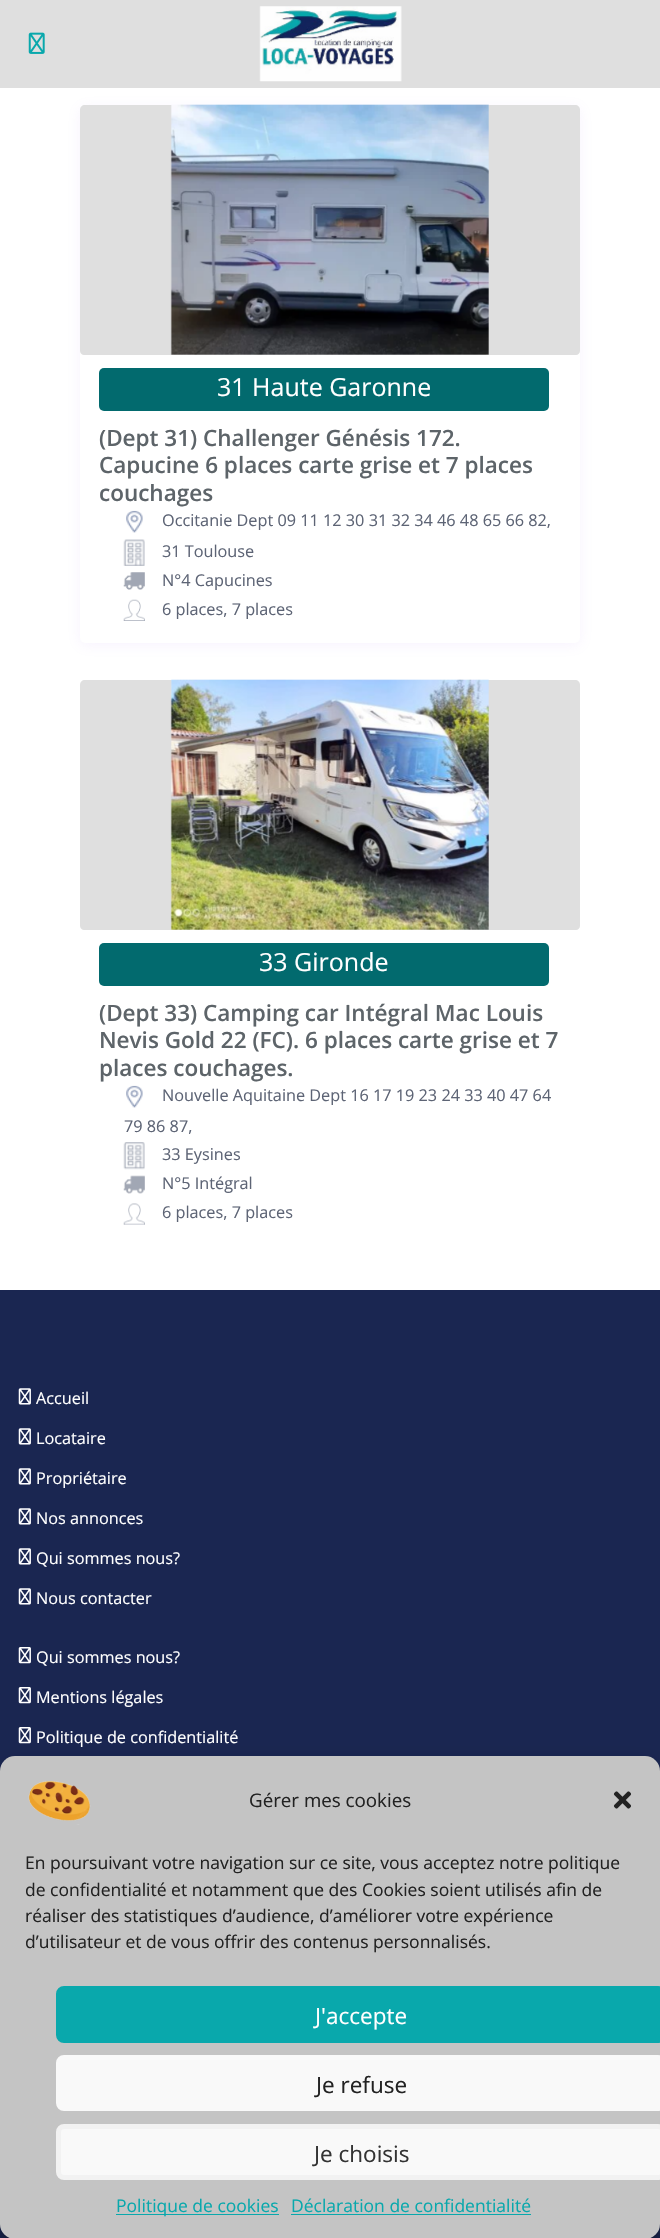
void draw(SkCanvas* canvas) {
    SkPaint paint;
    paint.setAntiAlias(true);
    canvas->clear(0xFFFFFFFF);
    paint.setColor(0x1AB57FFA);
    paint.setMaskFilter(SkMaskFilter::MakeBlur(kNormal_SkBlurStyle, 7));
    canvas->drawRoundRect(SkRect::MakeXYWH(80, 108, 500, 537), 5, 5, paint);
    paint.setMaskFilter(nullptr);
    paint.setColor(0xFFDFDFDF);
    canvas->drawRect(SkRect::MakeXYWH(0, 0, 660, 88), paint);
    canvas->drawImageRect(SkImages::DeferredFromEncodedData(SkData::MakeFromFileName("img1.png")), SkRect::MakeXYWH(28, 32, 17, 22), SkSamplingOptions());
    canvas->drawImageRect(SkImages::DeferredFromEncodedData(SkData::MakeFromFileName("img2.png")), SkRect::MakeXYWH(259, 6, 143, 76), SkSamplingOptions());
    paint.setColor(0xFFFFFFFF);
    canvas->drawRoundRect(SkRect::MakeXYWH(80, 105, 500, 538), 5, 5, paint);
    paint.setColor(0xFFDFDFDF);
    canvas->drawPath(SkPathBuilder().moveTo(85, 105).lineTo(575, 105).cubicTo(578, 105, 580, 107, 580, 110).lineTo(580, 351).cubicTo(580, 353, 578, 355, 576, 355).lineTo(84, 355).cubicTo(82, 355, 80, 353, 80, 351).lineTo(80, 110).cubicTo(80, 107, 82, 105, 85, 105).close().detach(), paint);
    canvas->drawImageRect(SkImages::DeferredFromEncodedData(SkData::MakeFromFileName("img3.png")), SkRect::MakeXYWH(170, 104, 319, 251), SkSamplingOptions());
    paint.setColor(0xFF026A6E);
    canvas->drawRoundRect(SkRect::MakeXYWH(99, 368, 450, 43), 5, 5, paint);
    SkFont font1(fontMgr->matchFamilyStyle("Open Sans", SkFontStyle::Normal()), 25);
    font1.setSubpixel(true);
    paint.setColor(0xFFFFFFFF);
    canvas->drawString("31 Haute Garonne", 217, 396, font1, paint);
    SkFont font2(fontMgr->matchFamilyStyle("Open Sans", SkFontStyle(600, SkFontStyle::kNormal_Width, SkFontStyle::kUpright_Slant)), 22.5f);
    font2.setSubpixel(true);
    paint.setColor(0xFF5D6469);
    canvas->drawString("(Dept 31) Challenger Génésis 172.", 99, 446, font2, paint);
    canvas->drawString("Capucine 6 places carte grise et 7 places", 99, 473, font2, paint);
    canvas->drawString("couchages", 99, 501, font2, paint);
    canvas->drawImageRect(SkImages::DeferredFromEncodedData(SkData::MakeFromFileName("img4.png")), SkRect::MakeXYWH(126, 510, 17, 23), SkSamplingOptions());
    SkFont font3(fontMgr->matchFamilyStyle("Open Sans", SkFontStyle::Normal()), 16.25f);
    font3.setSubpixel(true);
    paint.setColor(0xFF5D6475);
    canvas->drawString("Occitanie Dept 09 11 12 30 31 32 34 46 48 65 66 82,", 162, 526, font3, paint);
    canvas->drawImageRect(SkImages::DeferredFromEncodedData(SkData::MakeFromFileName("img5.png")), SkRect::MakeXYWH(123, 539, 22, 27), SkSamplingOptions());
    canvas->drawString("31 Toulouse", 162, 557, font3, paint);
    canvas->drawImageRect(SkImages::DeferredFromEncodedData(SkData::MakeFromFileName("img6.png")), SkRect::MakeXYWH(123, 572, 22, 18), SkSamplingOptions());
    canvas->drawString("N°4 Capucines", 162, 586, font3, paint);
    canvas->drawImageRect(SkImages::DeferredFromEncodedData(SkData::MakeFromFileName("img7.png")), SkRect::MakeXYWH(123, 599, 22, 22), SkSamplingOptions());
    canvas->drawString("6 places, 7 places", 162, 615, font3, paint);
    paint.setColor(0xFFDFDFDF);
    canvas->drawPath(SkPathBuilder().moveTo(85, 680).lineTo(575, 680).cubicTo(578, 680, 580, 682, 580, 685).lineTo(580, 926).cubicTo(580, 928, 578, 930, 576, 930).lineTo(84, 930).cubicTo(82, 930, 80, 928, 80, 926).lineTo(80, 685).cubicTo(80, 682, 82, 680, 85, 680).close().detach(), paint);
    canvas->drawImageRect(SkImages::DeferredFromEncodedData(SkData::MakeFromFileName("img8.png")), SkRect::MakeXYWH(170, 679, 319, 251), SkSamplingOptions());
    paint.setColor(0xFF026A6E);
    canvas->drawRoundRect(SkRect::MakeXYWH(99, 943, 450, 43), 5, 5, paint);
    paint.setColor(0xFFFFFFFF);
    canvas->drawString("33 Gironde", 259, 971, font1, paint);
    paint.setColor(0xFF5D6469);
    canvas->drawString("(Dept 33) Camping car Intégral Mac Louis", 99, 1021, font2, paint);
    canvas->drawString("Nevis Gold 22 (FC). 6 places carte grise et 7", 99, 1048, font2, paint);
    canvas->drawString("places couchages.", 99, 1076, font2, paint);
    canvas->drawImageRect(SkImages::DeferredFromEncodedData(SkData::MakeFromFileName("img4.png")), SkRect::MakeXYWH(126, 1085, 17, 23), SkSamplingOptions());
    paint.setColor(0xFF5D6475);
    canvas->drawString("Nouvelle Aquitaine Dept 16 17 19 23 24 33 40 47 64", 162, 1101, font3, paint);
    canvas->drawString("79 86 87,", 124, 1132, font3, paint);
    canvas->drawImageRect(SkImages::DeferredFromEncodedData(SkData::MakeFromFileName("img9.png")), SkRect::MakeXYWH(123, 1142, 22, 28), SkSamplingOptions());
    canvas->drawString("33 Eysines", 162, 1160, font3, paint);
    canvas->drawImageRect(SkImages::DeferredFromEncodedData(SkData::MakeFromFileName("img10.png")), SkRect::MakeXYWH(123, 1175, 22, 19), SkSamplingOptions());
    canvas->drawString("N°5 Intégral", 162, 1189, font3, paint);
    canvas->drawImageRect(SkImages::DeferredFromEncodedData(SkData::MakeFromFileName("img11.png")), SkRect::MakeXYWH(123, 1203, 22, 22), SkSamplingOptions());
    canvas->drawString("6 places, 7 places", 162, 1218, font3, paint);
    paint.setColor(0xFF1A2651);
    canvas->drawRect(SkRect::MakeXYWH(0, 1290, 660, 948), paint);
    canvas->drawImageRect(SkImages::DeferredFromEncodedData(SkData::MakeFromFileName("img12.png")), SkRect::MakeXYWH(18, 1388, 13, 17), SkSamplingOptions());
    paint.setColor(0xFFFFFFFF);
    canvas->drawString("Accueil", 36, 1404, font3, paint);
    canvas->drawImageRect(SkImages::DeferredFromEncodedData(SkData::MakeFromFileName("img12.png")), SkRect::MakeXYWH(18, 1428, 13, 17), SkSamplingOptions());
    canvas->drawString("Locataire", 36, 1444, font3, paint);
    canvas->drawImageRect(SkImages::DeferredFromEncodedData(SkData::MakeFromFileName("img12.png")), SkRect::MakeXYWH(18, 1468, 13, 17), SkSamplingOptions());
    canvas->drawString("Propriétaire", 36, 1484, font3, paint);
    canvas->drawImageRect(SkImages::DeferredFromEncodedData(SkData::MakeFromFileName("img12.png")), SkRect::MakeXYWH(18, 1508, 13, 17), SkSamplingOptions());
    canvas->drawString("Nos annonces", 36, 1524, font3, paint);
    canvas->drawImageRect(SkImages::DeferredFromEncodedData(SkData::MakeFromFileName("img12.png")), SkRect::MakeXYWH(18, 1548, 13, 17), SkSamplingOptions());
    canvas->drawString("Qui sommes nous?", 36, 1564, font3, paint);
    canvas->drawImageRect(SkImages::DeferredFromEncodedData(SkData::MakeFromFileName("img12.png")), SkRect::MakeXYWH(18, 1588, 13, 17), SkSamplingOptions());
    canvas->drawString("Nous contacter", 36, 1604, font3, paint);
    canvas->drawImageRect(SkImages::DeferredFromEncodedData(SkData::MakeFromFileName("img13.png")), SkRect::MakeXYWH(18, 1647, 13, 17), SkSamplingOptions());
    canvas->drawString("Qui sommes nous?", 36, 1663, font3, paint);
    canvas->drawImageRect(SkImages::DeferredFromEncodedData(SkData::MakeFromFileName("img13.png")), SkRect::MakeXYWH(18, 1687, 13, 17), SkSamplingOptions());
    canvas->drawString("Mentions légales", 36, 1703, font3, paint);
    canvas->drawImageRect(SkImages::DeferredFromEncodedData(SkData::MakeFromFileName("img13.png")), SkRect::MakeXYWH(18, 1727, 13, 17), SkSamplingOptions());
    canvas->drawString("Politique de confidentialité", 36, 1743, font3, paint);
    paint.setColor(0x3B000000);
    paint.setMaskFilter(SkMaskFilter::MakeBlur(kNormal_SkBlurStyle, 4));
    canvas->drawRoundRect(SkRect::MakeXYWH(0, 1764, 660, 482), 15, 15, paint);
    paint.setMaskFilter(nullptr);
    paint.setColor(0x30000000);
    paint.setMaskFilter(SkMaskFilter::MakeBlur(kNormal_SkBlurStyle, 12.5f));
    canvas->drawRoundRect(SkRect::MakeXYWH(0, 1769, 660, 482), 15, 15, paint);
    paint.setMaskFilter(nullptr);
    paint.setColor(0xFFC4C4C4);
    canvas->drawRoundRect(SkRect::MakeXYWH(0, 1756, 660, 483), 15, 15, paint);
    canvas->drawImageRect(SkImages::DeferredFromEncodedData(SkData::MakeFromFileName("img14.png")), SkRect::MakeXYWH(28, 1781, 63, 44), SkSamplingOptions());
    SkFont font4(fontMgr->matchFamilyStyle("Open Sans", SkFontStyle::Normal()), 18.75f);
    font4.setSubpixel(true);
    paint.setColor(0xFF222222);
    canvas->drawString("Gérer mes cookies", 249, 1807, font4, paint);
    canvas->drawImageRect(SkImages::DeferredFromEncodedData(SkData::MakeFromFileName("img15.png")), SkRect::MakeXYWH(613, 1791, 18, 18), SkSamplingOptions());
    SkFont font5(fontMgr->matchFamilyStyle("Open Sans", SkFontStyle::Normal()), 17.5f);
    font5.setSubpixel(true);
    canvas->drawString("En poursuivant votre navigation sur ce site, vous acceptez notre politique", 25, 1869, font5, paint);
    canvas->drawString("de confidentialité et notamment que des Cookies soient utilisés afin de", 25, 1896, font5, paint);
    canvas->drawString("réaliser des statistiques d’audience, d’améliorer votre expérience", 25, 1922, font5, paint);
    canvas->drawString("d’utilisateur et de vous offrir des contenus personnalisés.", 25, 1948, font5, paint);
    paint.setColor(0xFF09A8AC);
    canvas->drawRoundRect(SkRect::MakeXYWH(58.5f, 1988.5f, 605, 52), 5.5f, 5.5f, paint);
    paint.setStyle(SkPaint::kStroke_Style);
    paint.setStrokeWidth(5);
    canvas->drawRoundRect(SkRect::MakeXYWH(58.5f, 1988.5f, 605, 52), 5.5f, 5.5f, paint);
    SkFont font6(fontMgr->matchFamilyStyle("Open Sans", SkFontStyle::Normal()), 22.5f);
    font6.setSubpixel(true);
    paint.setStyle(SkPaint::kFill_Style);
    paint.setColor(0xFFFFFFFF);
    canvas->drawString("J'accepte", 315, 2024, font6, paint);
    paint.setColor(0xFFF9F9F9);
    canvas->drawRoundRect(SkRect::MakeXYWH(58.5f, 2057.5f, 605, 51), 5.5f, 5.5f, paint);
    paint.setStyle(SkPaint::kStroke_Style);
    canvas->drawRoundRect(SkRect::MakeXYWH(58.5f, 2057.5f, 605, 51), 5.5f, 5.5f, paint);
    paint.setStyle(SkPaint::kFill_Style);
    paint.setColor(0xFF222222);
    canvas->drawString("Je refuse", 316, 2093, font6, paint);
    paint.setColor(0xFFF9F9F9);
    canvas->drawRoundRect(SkRect::MakeXYWH(58.5f, 2126.5f, 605, 51), 5.5f, 5.5f, paint);
    paint.setStyle(SkPaint::kStroke_Style);
    paint.setColor(0xFFF2F2F2);
    canvas->drawRoundRect(SkRect::MakeXYWH(58.5f, 2126.5f, 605, 51), 5.5f, 5.5f, paint);
    paint.setStyle(SkPaint::kFill_Style);
    paint.setColor(0xFF333333);
    canvas->drawString("Je choisis", 314, 2162, font6, paint);
    paint.setColor(0xFF09A8AC);
    canvas->drawRect(SkRect::MakeXYWH(116, 2214, 163, 1), paint);
    canvas->drawString("Politique de cookies", 116, 2212, font5, paint);
    canvas->drawString("Déclaration de confidentialité", 291, 2212, font5, paint);
    canvas->drawRect(SkRect::MakeXYWH(291, 2214, 240, 1), paint);
}
